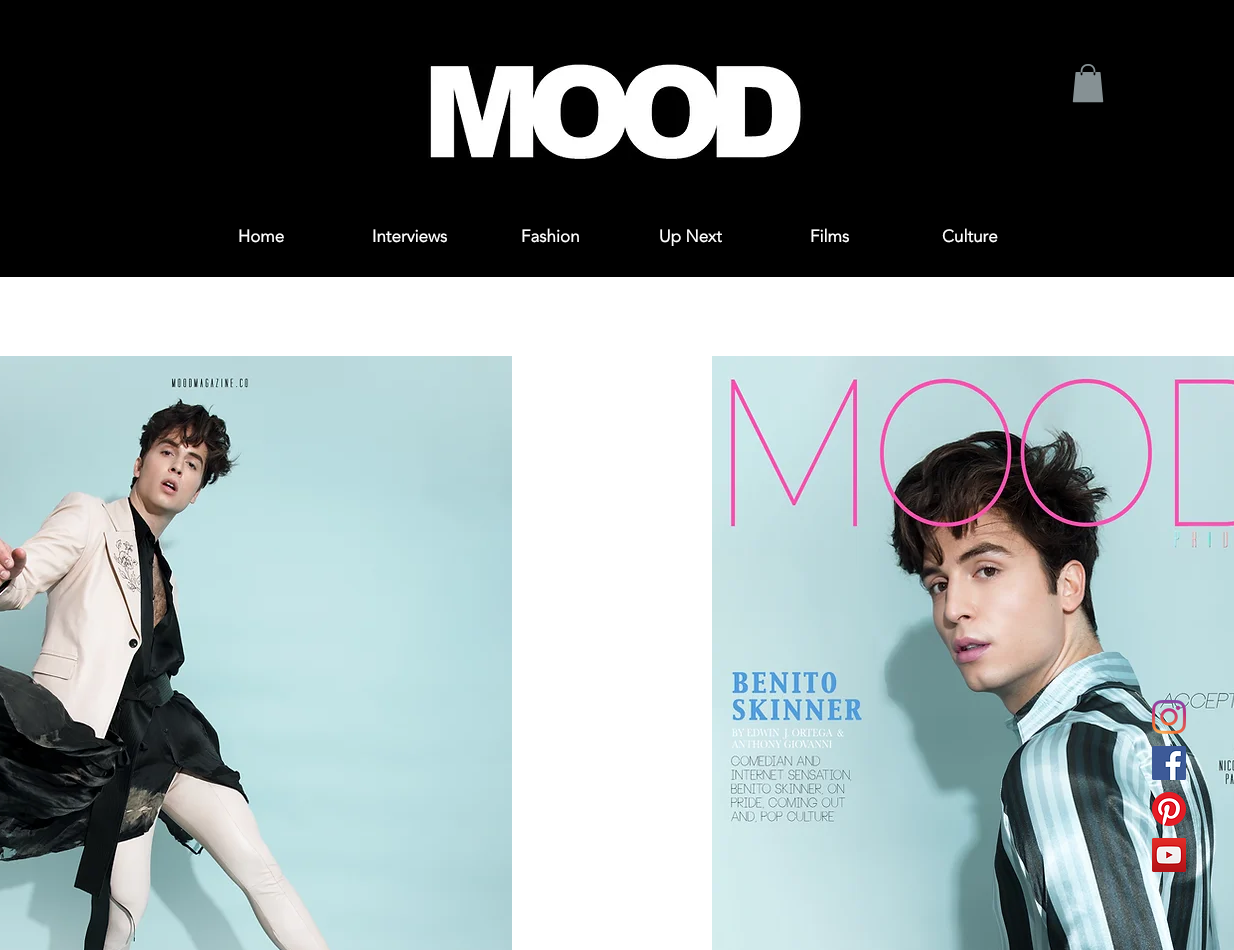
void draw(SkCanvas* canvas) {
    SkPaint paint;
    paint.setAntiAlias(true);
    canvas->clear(0xFFFFFFFF);
    paint.setColor(0xFF000000);
    canvas->drawRect(SkRect::MakeXYWH(0, 0, 1234, 277), paint);
    canvas->drawImageRect(SkImages::DeferredFromEncodedData(SkData::MakeFromFileName("img1.png")), SkRect::MakeXYWH(428, 64, 376, 96), SkSamplingOptions());
    canvas->drawImageRect(SkImages::DeferredFromEncodedData(SkData::MakeFromFileName("img2.png")), SkRect::MakeXYWH(1072, 64, 32, 39), SkSamplingOptions());
    SkFont font1(fontMgr->matchFamilyStyle("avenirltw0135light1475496", SkFontStyle::Bold()), 17);
    font1.setSubpixel(true);
    paint.setColor(0xFFFFFFFF);
    canvas->drawString("Home", 238, 242, font1, paint);
    canvas->drawString("Interviews", 372, 242, font1, paint);
    canvas->drawString("Fashion", 521, 242, font1, paint);
    canvas->drawString("Up Next", 659, 242, font1, paint);
    canvas->drawString("Films", 810, 242, font1, paint);
    canvas->drawString("Culture", 942, 242, font1, paint);
    canvas->drawImageRect(SkImages::DeferredFromEncodedData(SkData::MakeFromFileName("img3.png")), SkRect::MakeXYWH(0, 356, 512, 594), SkSamplingOptions());
    canvas->drawImageRect(SkImages::DeferredFromEncodedData(SkData::MakeFromFileName("img4.png")), SkRect::MakeXYWH(712, 356, 522, 594), SkSamplingOptions());
    canvas->drawImageRect(SkImages::DeferredFromEncodedData(SkData::MakeFromFileName("img5.png")), SkRect::MakeXYWH(1152, 700, 34, 34), SkSamplingOptions());
    canvas->drawImageRect(SkImages::DeferredFromEncodedData(SkData::MakeFromFileName("img6.png")), SkRect::MakeXYWH(1152, 746, 34, 34), SkSamplingOptions());
    canvas->drawImageRect(SkImages::DeferredFromEncodedData(SkData::MakeFromFileName("img7.png")), SkRect::MakeXYWH(1152, 792, 34, 34), SkSamplingOptions());
    canvas->drawImageRect(SkImages::DeferredFromEncodedData(SkData::MakeFromFileName("img8.png")), SkRect::MakeXYWH(1152, 838, 34, 34), SkSamplingOptions());
}
